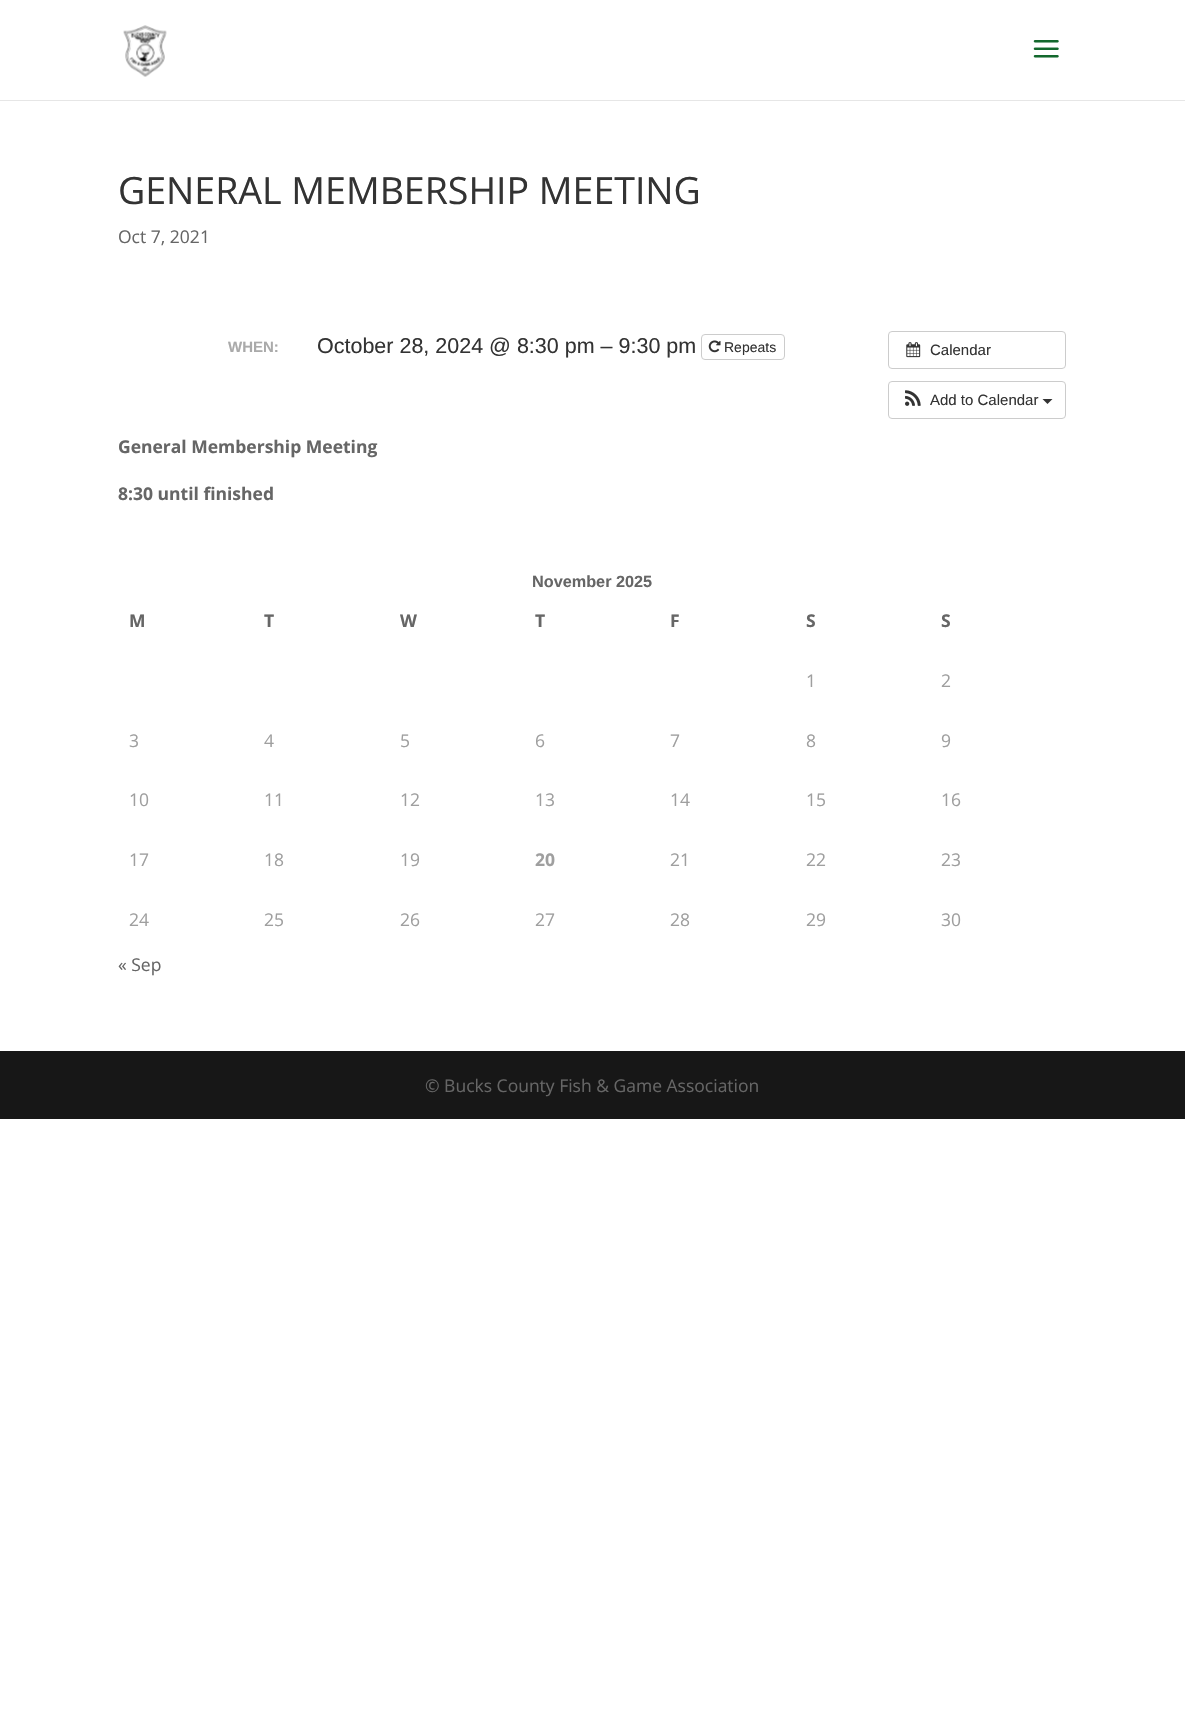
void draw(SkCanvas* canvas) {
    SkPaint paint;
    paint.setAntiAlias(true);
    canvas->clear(0xFFFFFFFF);
    paint.setColor(0xFFE6E6E6);
    canvas->drawRect(SkRect::MakeXYWH(0, 100, 1185, 1), paint);
    canvas->drawImageRect(SkImages::DeferredFromEncodedData(SkData::MakeFromFileName("img1.png")), SkRect::MakeXYWH(123, 25, 44, 52), SkSamplingOptions());
    canvas->drawImageRect(SkImages::DeferredFromEncodedData(SkData::MakeFromFileName("img2.png")), SkRect::MakeXYWH(1033, 40, 26, 18), SkSamplingOptions());
    SkFont font1(fontMgr->matchFamilyStyle("Open Sans", SkFontStyle::Normal()), 37.5f);
    font1.setSubpixel(true);
    paint.setColor(0xFF333333);
    canvas->drawString("GENERAL MEMBERSHIP MEETING", 118, 204, font1, paint);
    SkFont font2(fontMgr->matchFamilyStyle("Open Sans", SkFontStyle::Normal()), 17.5f);
    font2.setSubpixel(true);
    paint.setColor(0xFF666666);
    canvas->drawString("Oct 7, 2021", 118, 243, font2, paint);
    SkFont font3(fontMgr->matchFamilyStyle("Liberation Sans", SkFontStyle::Bold()), 15);
    font3.setSubpixel(true);
    paint.setColor(0xFFAAAAAA);
    canvas->drawString("WHEN:", 228, 352, font3, paint);
    SkFont font4(fontMgr->matchFamilyStyle("Liberation Sans", SkFontStyle::Normal()), 21.5f);
    font4.setSubpixel(true);
    paint.setColor(0xFF333333);
    canvas->drawString("October 28, 2024 @ 8:30 pm – 9:30 pm", 317, 353, font4, paint);
    paint.setStyle(SkPaint::kStroke_Style);
    paint.setStrokeWidth(1);
    paint.setColor(0xFFCCCCCC);
    canvas->drawRoundRect(SkRect::MakeXYWH(701.5f, 334.5f, 83, 25), 3.5f, 3.5f, paint);
    canvas->drawImageRect(SkImages::DeferredFromEncodedData(SkData::MakeFromFileName("img3.png")), SkRect::MakeXYWH(708, 340, 13, 13), SkSamplingOptions());
    SkFont font5(fontMgr->matchFamilyStyle("Liberation Sans", SkFontStyle::Normal()), 14);
    font5.setSubpixel(true);
    paint.setStyle(SkPaint::kFill_Style);
    paint.setColor(0xFF333333);
    canvas->drawString("Repeats", 724, 352, font5, paint);
    paint.setStyle(SkPaint::kStroke_Style);
    paint.setColor(0xFFCCCCCC);
    canvas->drawRoundRect(SkRect::MakeXYWH(888.5f, 331.5f, 177, 37), 3.5f, 3.5f, paint);
    canvas->drawImageRect(SkImages::DeferredFromEncodedData(SkData::MakeFromFileName("img4.png")), SkRect::MakeXYWH(906, 342, 15, 16), SkSamplingOptions());
    SkFont font6(fontMgr->matchFamilyStyle("Liberation Sans", SkFontStyle::Normal()), 15);
    font6.setSubpixel(true);
    paint.setStyle(SkPaint::kFill_Style);
    paint.setColor(0xFF333333);
    canvas->drawString("Calendar", 930, 355, font6, paint);
    paint.setStyle(SkPaint::kStroke_Style);
    paint.setColor(0xFFCCCCCC);
    canvas->drawRoundRect(SkRect::MakeXYWH(888.5f, 381.5f, 177, 37), 3.5f, 3.5f, paint);
    canvas->drawImageRect(SkImages::DeferredFromEncodedData(SkData::MakeFromFileName("img5.png")), SkRect::MakeXYWH(905, 390, 16, 16), SkSamplingOptions());
    paint.setStyle(SkPaint::kFill_Style);
    paint.setColor(0xFF333333);
    canvas->drawString("Add to Calendar", 930, 405, font6, paint);
    canvas->drawPath(SkPathBuilder().moveTo(1042.5f, 399).lineTo(1052.5f, 399).lineTo(1047.5f, 404).close().detach(), paint);
    SkFont font7(fontMgr->matchFamilyStyle("Open Sans", SkFontStyle::Bold()), 17.5f);
    font7.setSubpixel(true);
    paint.setColor(0xFF666666);
    canvas->drawString("General Membership Meeting", 118, 453, font7, paint);
    canvas->drawString("8:30 until finished", 118, 500, font7, paint);
    SkFont font8(fontMgr->matchFamilyStyle("Liberation Sans", SkFontStyle::Bold()), 16.25f);
    font8.setSubpixel(true);
    canvas->drawString("November 2025", 532, 587, font8, paint);
    canvas->drawString("M", 129, 627, font7, paint);
    canvas->drawString("T", 264, 627, font7, paint);
    canvas->drawString("W", 400, 627, font7, paint);
    canvas->drawString("T", 535, 627, font7, paint);
    canvas->drawString("F", 670, 627, font7, paint);
    canvas->drawString("S", 806, 627, font7, paint);
    canvas->drawString("S", 941, 627, font7, paint);
    paint.setColor(0xFF9F9F9F);
    canvas->drawString("1", 806, 687, font2, paint);
    canvas->drawString("2", 941, 687, font2, paint);
    canvas->drawString("3", 129, 747, font2, paint);
    canvas->drawString("4", 264, 747, font2, paint);
    canvas->drawString("5", 400, 747, font2, paint);
    canvas->drawString("6", 535, 747, font2, paint);
    canvas->drawString("7", 670, 747, font2, paint);
    canvas->drawString("8", 806, 747, font2, paint);
    canvas->drawString("9", 941, 747, font2, paint);
    canvas->drawString("10", 129, 806, font2, paint);
    canvas->drawString("11", 264, 806, font2, paint);
    canvas->drawString("12", 400, 806, font2, paint);
    canvas->drawString("13", 535, 806, font2, paint);
    canvas->drawString("14", 670, 806, font2, paint);
    canvas->drawString("15", 806, 806, font2, paint);
    canvas->drawString("16", 941, 806, font2, paint);
    canvas->drawString("17", 129, 866, font2, paint);
    canvas->drawString("18", 264, 866, font2, paint);
    canvas->drawString("19", 400, 866, font2, paint);
    canvas->drawString("20", 535, 866, font7, paint);
    canvas->drawString("21", 670, 866, font2, paint);
    canvas->drawString("22", 806, 866, font2, paint);
    canvas->drawString("23", 941, 866, font2, paint);
    canvas->drawString("24", 129, 926, font2, paint);
    canvas->drawString("25", 264, 926, font2, paint);
    canvas->drawString("26", 400, 926, font2, paint);
    canvas->drawString("27", 535, 926, font2, paint);
    canvas->drawString("28", 670, 926, font2, paint);
    canvas->drawString("29", 806, 926, font2, paint);
    canvas->drawString("30", 941, 926, font2, paint);
    paint.setColor(0xFF666666);
    canvas->drawString("« Sep", 118, 971, font2, paint);
    paint.setColor(0xFF171717);
    canvas->drawRect(SkRect::MakeXYWH(0, 1051, 1185, 68), paint);
    paint.setColor(0xFF666666);
    canvas->drawString("© Bucks County Fish & Game Association", 425, 1092, font2, paint);
}
